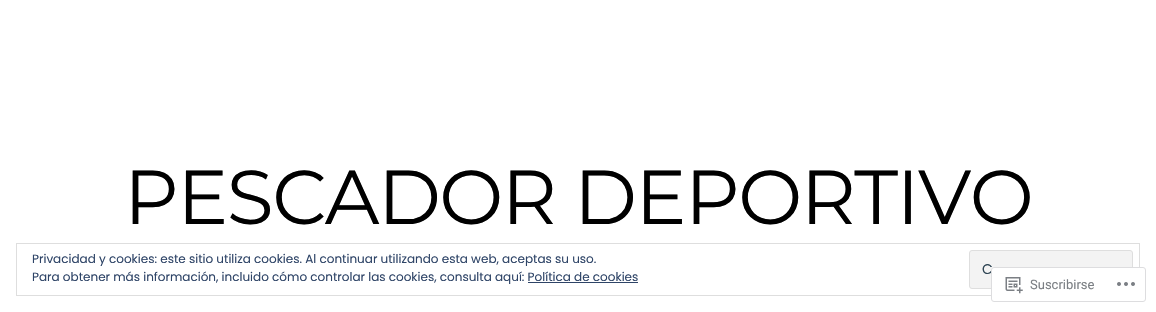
void draw(SkCanvas* canvas) {
    SkPaint paint;
    paint.setAntiAlias(true);
    auto spacedText = [&](const char* s, float x, float y, const SkFont& font, const SkPaint& ink, float letter, float word) {
        std::vector<SkGlyphID> glyphs(font.countText(s, strlen(s), SkTextEncoding::kUTF8));
        std::vector<float> xs(glyphs.size());
        font.textToGlyphs(s, strlen(s), SkTextEncoding::kUTF8, glyphs);
        font.getXPos(glyphs, xs, x);
        float extra = 0;
        for (size_t i = 0; i < glyphs.size(); i++) {
            xs[i] += extra;
            extra += letter + word * (glyphs[i] == font.unicharToGlyph(' '));
        }
        canvas->drawTextBlob(SkTextBlob::MakeFromPosHGlyphs(glyphs, xs, y, font), 0, 0, ink);
    };
    canvas->clear(0xFFFFFFFF);
    SkFont font1(fontMgr->matchFamilyStyle("Montserrat", SkFontStyle(100, SkFontStyle::kNormal_Width, SkFontStyle::kUpright_Slant)), 76.25f);
    font1.setSubpixel(true);
    paint.setColor(0xFF000000);
    spacedText("PESCADOR DEPORTIVO", 124, 224, font1, paint, -1.5f, 0);
    paint.setStyle(SkPaint::kStroke_Style);
    paint.setStrokeWidth(1);
    paint.setColor(0xFFDEDEDE);
    canvas->drawRect(SkRect::MakeXYWH(16.5f, 243.5f, 1123, 52), paint);
    SkFont font2(fontMgr->matchFamilyStyle("Poppins", SkFontStyle::Normal()), 12);
    font2.setSubpixel(true);
    paint.setStyle(SkPaint::kFill_Style);
    paint.setColor(0xFF2E4467);
    canvas->drawString("Privacidad y cookies: este sitio utiliza cookies. Al continuar utilizando esta web, aceptas su uso.", 32, 263, font2, paint);
    paint.setColor(0xFFF3F3F3);
    canvas->drawRoundRect(SkRect::MakeXYWH(969.5f, 250.5f, 163, 38), 2.5f, 2.5f, paint);
    paint.setStyle(SkPaint::kStroke_Style);
    paint.setColor(0xFFDEDEDE);
    canvas->drawRoundRect(SkRect::MakeXYWH(969.5f, 250.5f, 163, 38), 2.5f, 2.5f, paint);
    SkFont font3(fontMgr->matchFamilyStyle("Poppins", SkFontStyle::Normal()), 14);
    font3.setSubpixel(true);
    paint.setStyle(SkPaint::kFill_Style);
    paint.setColor(0xFF2E4453);
    spacedText("C", 982, 274, font3, paint, 1, 0);
    paint.setColor(0xFF2E4467);
    canvas->drawString("Para obtener más información, incluido cómo controlar las cookies, consulta aquí: Política de cookies", 32, 281, font2, paint);
    canvas->drawRect(SkRect::MakeXYWH(528, 282, 110, 1), paint);
    paint.setColor(0xFAFFFFFF);
    canvas->drawRoundRect(SkRect::MakeXYWH(991, 267, 155, 35), 3, 3, paint);
    paint.setStyle(SkPaint::kStroke_Style);
    paint.setColor(0xFADCDCDE);
    canvas->drawRoundRect(SkRect::MakeXYWH(991.5f, 267.5f, 154, 34), 2.5f, 2.5f, paint);
    canvas->drawImageRect(SkImages::DeferredFromEncodedData(SkData::MakeFromFileName("img1.png")), SkRect::MakeXYWH(1005, 277, 18, 17), SkSamplingOptions());
    SkFont font4(fontMgr->matchFamilyStyle("Roboto", SkFontStyle::Normal()), 13);
    font4.setSubpixel(true);
    paint.setStyle(SkPaint::kFill_Style);
    paint.setColor(0xFF7B7F84);
    canvas->drawString("Suscribirse", 1030, 289, font4, paint);
    canvas->drawImageRect(SkImages::DeferredFromEncodedData(SkData::MakeFromFileName("img2.png")), SkRect::MakeXYWH(1117, 282, 18, 4), SkSamplingOptions());
}
